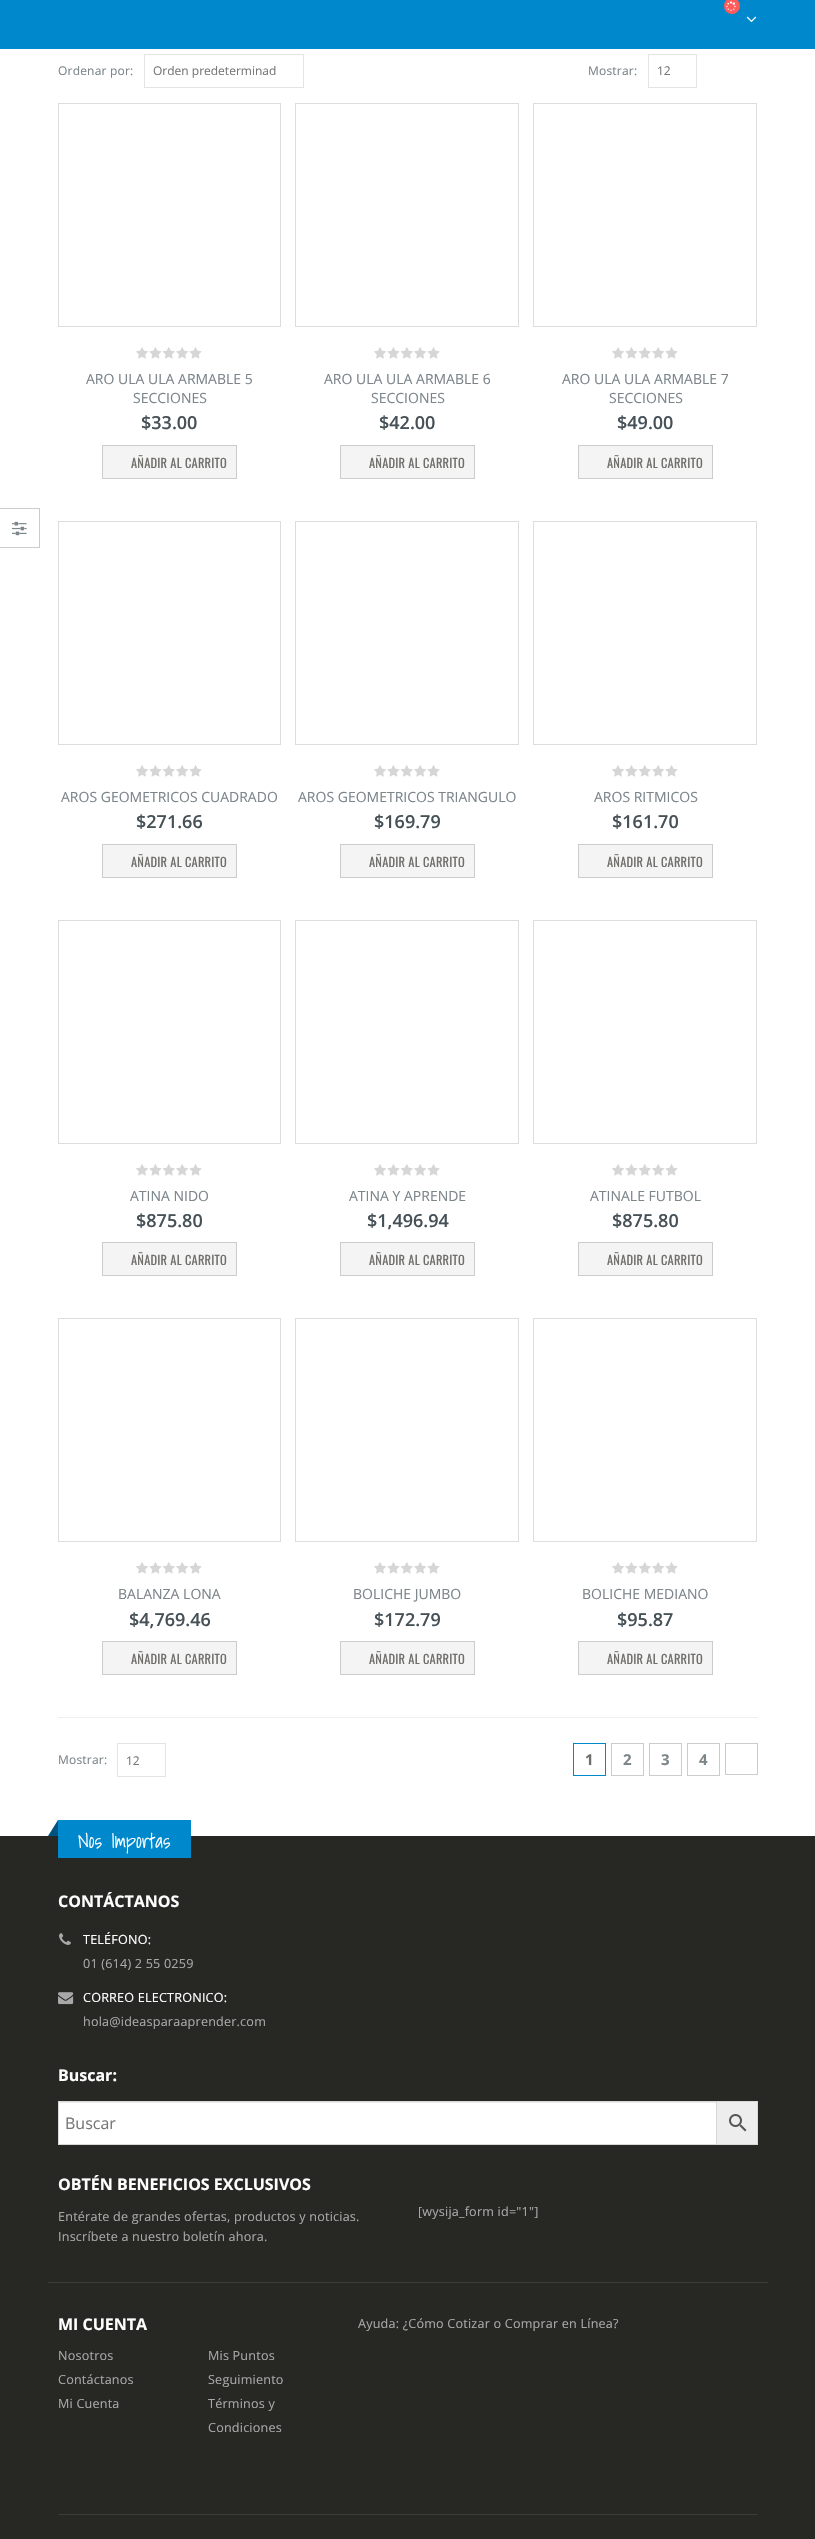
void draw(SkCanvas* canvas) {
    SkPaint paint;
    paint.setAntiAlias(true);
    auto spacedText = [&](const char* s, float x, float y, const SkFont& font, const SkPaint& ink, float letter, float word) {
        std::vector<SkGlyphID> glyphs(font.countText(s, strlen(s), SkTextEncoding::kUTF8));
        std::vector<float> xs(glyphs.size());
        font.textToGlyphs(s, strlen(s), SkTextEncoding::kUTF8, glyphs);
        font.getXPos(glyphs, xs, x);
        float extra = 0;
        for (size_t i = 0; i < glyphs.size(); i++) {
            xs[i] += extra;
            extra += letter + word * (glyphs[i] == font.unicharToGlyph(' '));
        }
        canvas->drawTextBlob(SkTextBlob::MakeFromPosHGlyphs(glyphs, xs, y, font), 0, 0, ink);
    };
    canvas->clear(0xFFFFFFFF);
    paint.setColor(0xFF0088CC);
    canvas->drawRect(SkRect::MakeXYWH(0, 0, 815, 49), paint);
    paint.setColor(0xFFFF5B5B);
    canvas->drawCircle(732, 6, 8, paint);
    canvas->drawImageRect(SkImages::DeferredFromEncodedData(SkData::MakeFromFileName("img1.png")), SkRect::MakeXYWH(726, 1, 10, 10), SkSamplingOptions());
    canvas->drawImageRect(SkImages::DeferredFromEncodedData(SkData::MakeFromFileName("img2.png")), SkRect::MakeXYWH(746, 16, 11, 7), SkSamplingOptions());
    paint.setColor(0xFFCCCCCC);
    canvas->drawRect(SkRect::MakeXYWH(0, 508, 40, 1), paint);
    canvas->drawRect(SkRect::MakeXYWH(39, 508, 1, 40), paint);
    canvas->drawRect(SkRect::MakeXYWH(0, 547, 40, 1), paint);
    canvas->drawImageRect(SkImages::DeferredFromEncodedData(SkData::MakeFromFileName("img3.png")), SkRect::MakeXYWH(12, 521, 15, 15), SkSamplingOptions());
    SkFont font1(fontMgr->matchFamilyStyle("Open Sans", SkFontStyle::Normal()), 12);
    font1.setSubpixel(true);
    paint.setColor(0xFF7B858A);
    spacedText("Ordenar por:", 58, 75, font1, paint, 0.2f, 0);
    paint.setStyle(SkPaint::kStroke_Style);
    paint.setStrokeWidth(1);
    paint.setColor(0xFFE4E4E4);
    canvas->drawRect(SkRect::MakeXYWH(144.5f, 54.5f, 159, 33), paint);
    paint.setStyle(SkPaint::kFill_Style);
    paint.setColor(0xFF777777);
    canvas->drawString("Orden predeterminad", 153, 75, font1, paint);
    paint.setColor(0xFF7B858A);
    spacedText("Mostrar:", 588, 75, font1, paint, 0.2f, 0);
    paint.setStyle(SkPaint::kStroke_Style);
    paint.setColor(0xFFE4E4E4);
    canvas->drawRect(SkRect::MakeXYWH(648.5f, 54.5f, 48, 33), paint);
    paint.setStyle(SkPaint::kFill_Style);
    paint.setColor(0xFF777777);
    canvas->drawString("12", 657, 75, font1, paint);
    paint.setStyle(SkPaint::kStroke_Style);
    paint.setColor(0xFFDDDDDD);
    canvas->drawRect(SkRect::MakeXYWH(58.5f, 103.5f, 222, 223), paint);
    canvas->drawImageRect(SkImages::DeferredFromEncodedData(SkData::MakeFromFileName("img4.png")), SkRect::MakeXYWH(136, 347, 66, 12), SkSamplingOptions());
    SkFont font2(fontMgr->matchFamilyStyle("Open Sans", SkFontStyle::Normal()), 14);
    font2.setSubpixel(true);
    paint.setStyle(SkPaint::kFill_Style);
    paint.setColor(0xFF7B858A);
    canvas->drawString("ARO ULA ULA ARMABLE 5", 86, 384, font2, paint);
    canvas->drawString("SECCIONES", 133, 403, font2, paint);
    SkFont font3(fontMgr->matchFamilyStyle("Open Sans", SkFontStyle(600, SkFontStyle::kNormal_Width, SkFontStyle::kUpright_Slant)), 18);
    font3.setSubpixel(true);
    paint.setColor(0xFF465157);
    canvas->drawString("$33.00", 141, 429, font3, paint);
    paint.setColor(0xFFF4F4F4);
    canvas->drawRect(SkRect::MakeXYWH(102.5f, 445.5f, 134, 33), paint);
    paint.setStyle(SkPaint::kStroke_Style);
    paint.setColor(0xFFCCCCCC);
    canvas->drawRect(SkRect::MakeXYWH(102.5f, 445.5f, 134, 33), paint);
    SkFont font4(fontMgr->matchFamilyStyle("Oswald", SkFontStyle::Normal()), 12.5f);
    font4.setSubpixel(true);
    paint.setStyle(SkPaint::kFill_Style);
    paint.setColor(0xFF706F6C);
    spacedText("AÑADIR AL CARRITO", 131, 468, font4, paint, 0.2f, 0);
    paint.setStyle(SkPaint::kStroke_Style);
    paint.setColor(0xFFDDDDDD);
    canvas->drawRect(SkRect::MakeXYWH(295.5f, 103.5f, 223, 223), paint);
    canvas->drawImageRect(SkImages::DeferredFromEncodedData(SkData::MakeFromFileName("img4.png")), SkRect::MakeXYWH(374, 347, 66, 12), SkSamplingOptions());
    paint.setStyle(SkPaint::kFill_Style);
    paint.setColor(0xFF7B858A);
    canvas->drawString("ARO ULA ULA ARMABLE 6", 324, 384, font2, paint);
    canvas->drawString("SECCIONES", 371, 403, font2, paint);
    paint.setColor(0xFF465157);
    canvas->drawString("$42.00", 379, 429, font3, paint);
    paint.setColor(0xFFF4F4F4);
    canvas->drawRect(SkRect::MakeXYWH(340.5f, 445.5f, 134, 33), paint);
    paint.setStyle(SkPaint::kStroke_Style);
    paint.setColor(0xFFCCCCCC);
    canvas->drawRect(SkRect::MakeXYWH(340.5f, 445.5f, 134, 33), paint);
    paint.setStyle(SkPaint::kFill_Style);
    paint.setColor(0xFF706F6C);
    spacedText("AÑADIR AL CARRITO", 369, 468, font4, paint, 0.2f, 0);
    paint.setStyle(SkPaint::kStroke_Style);
    paint.setColor(0xFFDDDDDD);
    canvas->drawRect(SkRect::MakeXYWH(533.5f, 103.5f, 223, 223), paint);
    canvas->drawImageRect(SkImages::DeferredFromEncodedData(SkData::MakeFromFileName("img4.png")), SkRect::MakeXYWH(612, 347, 66, 12), SkSamplingOptions());
    paint.setStyle(SkPaint::kFill_Style);
    paint.setColor(0xFF7B858A);
    canvas->drawString("ARO ULA ULA ARMABLE 7", 562, 384, font2, paint);
    canvas->drawString("SECCIONES", 609, 403, font2, paint);
    paint.setColor(0xFF465157);
    canvas->drawString("$49.00", 617, 429, font3, paint);
    paint.setColor(0xFFF4F4F4);
    canvas->drawRect(SkRect::MakeXYWH(578.5f, 445.5f, 134, 33), paint);
    paint.setStyle(SkPaint::kStroke_Style);
    paint.setColor(0xFFCCCCCC);
    canvas->drawRect(SkRect::MakeXYWH(578.5f, 445.5f, 134, 33), paint);
    paint.setStyle(SkPaint::kFill_Style);
    paint.setColor(0xFF706F6C);
    spacedText("AÑADIR AL CARRITO", 607, 468, font4, paint, 0.2f, 0);
    paint.setStyle(SkPaint::kStroke_Style);
    paint.setColor(0xFFDDDDDD);
    canvas->drawRect(SkRect::MakeXYWH(58.5f, 521.5f, 222, 223), paint);
    canvas->drawImageRect(SkImages::DeferredFromEncodedData(SkData::MakeFromFileName("img4.png")), SkRect::MakeXYWH(136, 765, 66, 12), SkSamplingOptions());
    paint.setStyle(SkPaint::kFill_Style);
    paint.setColor(0xFF7B858A);
    canvas->drawString("AROS GEOMETRICOS CUADRADO", 61, 802, font2, paint);
    paint.setColor(0xFF465157);
    canvas->drawString("$271.66", 136, 828, font3, paint);
    paint.setColor(0xFFF4F4F4);
    canvas->drawRect(SkRect::MakeXYWH(102.5f, 844.5f, 134, 33), paint);
    paint.setStyle(SkPaint::kStroke_Style);
    paint.setColor(0xFFCCCCCC);
    canvas->drawRect(SkRect::MakeXYWH(102.5f, 844.5f, 134, 33), paint);
    paint.setStyle(SkPaint::kFill_Style);
    paint.setColor(0xFF706F6C);
    spacedText("AÑADIR AL CARRITO", 131, 867, font4, paint, 0.2f, 0);
    paint.setStyle(SkPaint::kStroke_Style);
    paint.setColor(0xFFDDDDDD);
    canvas->drawRect(SkRect::MakeXYWH(295.5f, 521.5f, 223, 223), paint);
    canvas->drawImageRect(SkImages::DeferredFromEncodedData(SkData::MakeFromFileName("img4.png")), SkRect::MakeXYWH(374, 765, 66, 12), SkSamplingOptions());
    paint.setStyle(SkPaint::kFill_Style);
    paint.setColor(0xFF7B858A);
    canvas->drawString("AROS GEOMETRICOS TRIANGULO", 298, 802, font2, paint);
    paint.setColor(0xFF465157);
    canvas->drawString("$169.79", 374, 828, font3, paint);
    paint.setColor(0xFFF4F4F4);
    canvas->drawRect(SkRect::MakeXYWH(340.5f, 844.5f, 134, 33), paint);
    paint.setStyle(SkPaint::kStroke_Style);
    paint.setColor(0xFFCCCCCC);
    canvas->drawRect(SkRect::MakeXYWH(340.5f, 844.5f, 134, 33), paint);
    paint.setStyle(SkPaint::kFill_Style);
    paint.setColor(0xFF706F6C);
    spacedText("AÑADIR AL CARRITO", 369, 867, font4, paint, 0.2f, 0);
    paint.setStyle(SkPaint::kStroke_Style);
    paint.setColor(0xFFDDDDDD);
    canvas->drawRect(SkRect::MakeXYWH(533.5f, 521.5f, 223, 223), paint);
    canvas->drawImageRect(SkImages::DeferredFromEncodedData(SkData::MakeFromFileName("img4.png")), SkRect::MakeXYWH(612, 765, 66, 12), SkSamplingOptions());
    paint.setStyle(SkPaint::kFill_Style);
    paint.setColor(0xFF7B858A);
    canvas->drawString("AROS RITMICOS", 594, 802, font2, paint);
    paint.setColor(0xFF465157);
    canvas->drawString("$161.70", 612, 828, font3, paint);
    paint.setColor(0xFFF4F4F4);
    canvas->drawRect(SkRect::MakeXYWH(578.5f, 844.5f, 134, 33), paint);
    paint.setStyle(SkPaint::kStroke_Style);
    paint.setColor(0xFFCCCCCC);
    canvas->drawRect(SkRect::MakeXYWH(578.5f, 844.5f, 134, 33), paint);
    paint.setStyle(SkPaint::kFill_Style);
    paint.setColor(0xFF706F6C);
    spacedText("AÑADIR AL CARRITO", 607, 867, font4, paint, 0.2f, 0);
    paint.setStyle(SkPaint::kStroke_Style);
    paint.setColor(0xFFDDDDDD);
    canvas->drawRect(SkRect::MakeXYWH(58.5f, 920.5f, 222, 223), paint);
    canvas->drawImageRect(SkImages::DeferredFromEncodedData(SkData::MakeFromFileName("img4.png")), SkRect::MakeXYWH(136, 1164, 66, 12), SkSamplingOptions());
    paint.setStyle(SkPaint::kFill_Style);
    paint.setColor(0xFF7B858A);
    canvas->drawString("ATINA NIDO", 130, 1201, font2, paint);
    paint.setColor(0xFF465157);
    canvas->drawString("$875.80", 136, 1227, font3, paint);
    paint.setColor(0xFFF4F4F4);
    canvas->drawRect(SkRect::MakeXYWH(102.5f, 1242.5f, 134, 33), paint);
    paint.setStyle(SkPaint::kStroke_Style);
    paint.setColor(0xFFCCCCCC);
    canvas->drawRect(SkRect::MakeXYWH(102.5f, 1242.5f, 134, 33), paint);
    paint.setStyle(SkPaint::kFill_Style);
    paint.setColor(0xFF706F6C);
    spacedText("AÑADIR AL CARRITO", 131, 1265, font4, paint, 0.2f, 0);
    paint.setStyle(SkPaint::kStroke_Style);
    paint.setColor(0xFFDDDDDD);
    canvas->drawRect(SkRect::MakeXYWH(295.5f, 920.5f, 223, 223), paint);
    canvas->drawImageRect(SkImages::DeferredFromEncodedData(SkData::MakeFromFileName("img4.png")), SkRect::MakeXYWH(374, 1164, 66, 12), SkSamplingOptions());
    paint.setStyle(SkPaint::kFill_Style);
    paint.setColor(0xFF7B858A);
    canvas->drawString("ATINA Y APRENDE", 349, 1201, font2, paint);
    paint.setColor(0xFF465157);
    canvas->drawString("$1,496.94", 367, 1227, font3, paint);
    paint.setColor(0xFFF4F4F4);
    canvas->drawRect(SkRect::MakeXYWH(340.5f, 1242.5f, 134, 33), paint);
    paint.setStyle(SkPaint::kStroke_Style);
    paint.setColor(0xFFCCCCCC);
    canvas->drawRect(SkRect::MakeXYWH(340.5f, 1242.5f, 134, 33), paint);
    paint.setStyle(SkPaint::kFill_Style);
    paint.setColor(0xFF706F6C);
    spacedText("AÑADIR AL CARRITO", 369, 1265, font4, paint, 0.2f, 0);
    paint.setStyle(SkPaint::kStroke_Style);
    paint.setColor(0xFFDDDDDD);
    canvas->drawRect(SkRect::MakeXYWH(533.5f, 920.5f, 223, 223), paint);
    canvas->drawImageRect(SkImages::DeferredFromEncodedData(SkData::MakeFromFileName("img4.png")), SkRect::MakeXYWH(612, 1164, 66, 12), SkSamplingOptions());
    paint.setStyle(SkPaint::kFill_Style);
    paint.setColor(0xFF7B858A);
    canvas->drawString("ATINALE FUTBOL", 590, 1201, font2, paint);
    paint.setColor(0xFF465157);
    canvas->drawString("$875.80", 612, 1227, font3, paint);
    paint.setColor(0xFFF4F4F4);
    canvas->drawRect(SkRect::MakeXYWH(578.5f, 1242.5f, 134, 33), paint);
    paint.setStyle(SkPaint::kStroke_Style);
    paint.setColor(0xFFCCCCCC);
    canvas->drawRect(SkRect::MakeXYWH(578.5f, 1242.5f, 134, 33), paint);
    paint.setStyle(SkPaint::kFill_Style);
    paint.setColor(0xFF706F6C);
    spacedText("AÑADIR AL CARRITO", 607, 1265, font4, paint, 0.2f, 0);
    paint.setStyle(SkPaint::kStroke_Style);
    paint.setColor(0xFFDDDDDD);
    canvas->drawRect(SkRect::MakeXYWH(58.5f, 1318.5f, 222, 223), paint);
    canvas->drawImageRect(SkImages::DeferredFromEncodedData(SkData::MakeFromFileName("img4.png")), SkRect::MakeXYWH(136, 1562, 66, 12), SkSamplingOptions());
    paint.setStyle(SkPaint::kFill_Style);
    paint.setColor(0xFF7B858A);
    canvas->drawString("BALANZA LONA", 118, 1599, font2, paint);
    paint.setColor(0xFF465157);
    canvas->drawString("$4,769.46", 129, 1626, font3, paint);
    paint.setColor(0xFFF4F4F4);
    canvas->drawRect(SkRect::MakeXYWH(102.5f, 1641.5f, 134, 33), paint);
    paint.setStyle(SkPaint::kStroke_Style);
    paint.setColor(0xFFCCCCCC);
    canvas->drawRect(SkRect::MakeXYWH(102.5f, 1641.5f, 134, 33), paint);
    paint.setStyle(SkPaint::kFill_Style);
    paint.setColor(0xFF706F6C);
    spacedText("AÑADIR AL CARRITO", 131, 1664, font4, paint, 0.2f, 0);
    paint.setStyle(SkPaint::kStroke_Style);
    paint.setColor(0xFFDDDDDD);
    canvas->drawRect(SkRect::MakeXYWH(295.5f, 1318.5f, 223, 223), paint);
    canvas->drawImageRect(SkImages::DeferredFromEncodedData(SkData::MakeFromFileName("img4.png")), SkRect::MakeXYWH(374, 1562, 66, 12), SkSamplingOptions());
    paint.setStyle(SkPaint::kFill_Style);
    paint.setColor(0xFF7B858A);
    canvas->drawString("BOLICHE JUMBO", 353, 1599, font2, paint);
    paint.setColor(0xFF465157);
    canvas->drawString("$172.79", 374, 1626, font3, paint);
    paint.setColor(0xFFF4F4F4);
    canvas->drawRect(SkRect::MakeXYWH(340.5f, 1641.5f, 134, 33), paint);
    paint.setStyle(SkPaint::kStroke_Style);
    paint.setColor(0xFFCCCCCC);
    canvas->drawRect(SkRect::MakeXYWH(340.5f, 1641.5f, 134, 33), paint);
    paint.setStyle(SkPaint::kFill_Style);
    paint.setColor(0xFF706F6C);
    spacedText("AÑADIR AL CARRITO", 369, 1664, font4, paint, 0.2f, 0);
    paint.setStyle(SkPaint::kStroke_Style);
    paint.setColor(0xFFDDDDDD);
    canvas->drawRect(SkRect::MakeXYWH(533.5f, 1318.5f, 223, 223), paint);
    canvas->drawImageRect(SkImages::DeferredFromEncodedData(SkData::MakeFromFileName("img4.png")), SkRect::MakeXYWH(612, 1562, 66, 12), SkSamplingOptions());
    paint.setStyle(SkPaint::kFill_Style);
    paint.setColor(0xFF7B858A);
    canvas->drawString("BOLICHE MEDIANO", 582, 1599, font2, paint);
    paint.setColor(0xFF465157);
    canvas->drawString("$95.87", 617, 1626, font3, paint);
    paint.setColor(0xFFF4F4F4);
    canvas->drawRect(SkRect::MakeXYWH(578.5f, 1641.5f, 134, 33), paint);
    paint.setStyle(SkPaint::kStroke_Style);
    paint.setColor(0xFFCCCCCC);
    canvas->drawRect(SkRect::MakeXYWH(578.5f, 1641.5f, 134, 33), paint);
    paint.setStyle(SkPaint::kFill_Style);
    paint.setColor(0xFF706F6C);
    spacedText("AÑADIR AL CARRITO", 607, 1664, font4, paint, 0.2f, 0);
    paint.setColor(0xFFEFEFEF);
    canvas->drawRect(SkRect::MakeXYWH(58, 1717, 700, 1), paint);
    paint.setColor(0xFF7B858A);
    spacedText("Mostrar:", 58, 1764, font1, paint, 0.2f, 0);
    paint.setStyle(SkPaint::kStroke_Style);
    paint.setColor(0xFFE4E4E4);
    canvas->drawRect(SkRect::MakeXYWH(117.5f, 1743.5f, 48, 33), paint);
    paint.setStyle(SkPaint::kFill_Style);
    paint.setColor(0xFF777777);
    canvas->drawString("12", 126, 1765, font1, paint);
    paint.setStyle(SkPaint::kStroke_Style);
    paint.setColor(0xFF0088CC);
    canvas->drawRect(SkRect::MakeXYWH(573.5f, 1743.5f, 32, 32), paint);
    SkFont font5(fontMgr->matchFamilyStyle("Open Sans", SkFontStyle::Bold()), 15);
    font5.setSubpixel(true);
    paint.setStyle(SkPaint::kFill_Style);
    paint.setColor(0xFF706F6C);
    spacedText("1", 585, 1765, font5, paint, 0.2f, 0);
    paint.setStyle(SkPaint::kStroke_Style);
    paint.setColor(0xFFCCCCCC);
    canvas->drawRect(SkRect::MakeXYWH(611.5f, 1743.5f, 32, 32), paint);
    paint.setStyle(SkPaint::kFill_Style);
    paint.setColor(0xFF7B858A);
    spacedText("2", 623, 1765, font5, paint, 0.2f, 0);
    paint.setStyle(SkPaint::kStroke_Style);
    paint.setColor(0xFFCCCCCC);
    canvas->drawRect(SkRect::MakeXYWH(649.5f, 1743.5f, 32, 32), paint);
    paint.setStyle(SkPaint::kFill_Style);
    paint.setColor(0xFF7B858A);
    spacedText("3", 661, 1765, font5, paint, 0.2f, 0);
    paint.setStyle(SkPaint::kStroke_Style);
    paint.setColor(0xFFCCCCCC);
    canvas->drawRect(SkRect::MakeXYWH(687.5f, 1743.5f, 32, 32), paint);
    paint.setStyle(SkPaint::kFill_Style);
    paint.setColor(0xFF7B858A);
    spacedText("4", 699, 1765, font5, paint, 0.2f, 0);
    paint.setStyle(SkPaint::kStroke_Style);
    paint.setColor(0xFFCCCCCC);
    canvas->drawRect(SkRect::MakeXYWH(725.5f, 1743.5f, 32, 31), paint);
    paint.setStyle(SkPaint::kFill_Style);
    paint.setColor(0xFF272723);
    canvas->drawRect(SkRect::MakeXYWH(0, 1836, 815, 703), paint);
    paint.setColor(0xFF0088CC);
    canvas->drawRect(SkRect::MakeXYWH(58, 1820, 133, 38), paint);
    paint.setColor(0xFF005580);
    canvas->drawPath(SkPathBuilder().moveTo(58, 1820).lineTo(58, 1836).lineTo(48, 1836).close().detach(), paint);
    SkFont font6(fontMgr->matchFamilyStyle("Shadows Into Light", SkFontStyle(300, SkFontStyle::kNormal_Width, SkFontStyle::kUpright_Slant)), 20);
    font6.setSubpixel(true);
    paint.setColor(0xFFFFFFFF);
    spacedText("Nos Importas", 78, 1848, font6, paint, 0.2f, 0);
    SkFont font7(fontMgr->matchFamilyStyle("Open Sans", SkFontStyle::Bold()), 16);
    font7.setSubpixel(true);
    canvas->drawString("CONTÁCTANOS", 58, 1907, font7, paint);
    canvas->drawImageRect(SkImages::DeferredFromEncodedData(SkData::MakeFromFileName("img5.png")), SkRect::MakeXYWH(59, 1933, 12, 12), SkSamplingOptions());
    SkFont font8(fontMgr->matchFamilyStyle("Open Sans", SkFontStyle::Normal()), 12.6f);
    font8.setSubpixel(true);
    spacedText("TELÉFONO:", 83, 1944, font8, paint, 0.2f, 0);
    paint.setColor(0xFFA8A8A8);
    spacedText("01 (614) 2 55 0259", 83, 1968, font8, paint, 0.2f, 0);
    canvas->drawImageRect(SkImages::DeferredFromEncodedData(SkData::MakeFromFileName("img6.png")), SkRect::MakeXYWH(58, 1992, 16, 13), SkSamplingOptions());
    paint.setColor(0xFFFFFFFF);
    spacedText("CORREO ELECTRONICO:", 83, 2002, font8, paint, 0.2f, 0);
    paint.setColor(0xFFA8A8A8);
    spacedText("hola@ideasparaaprender.com", 83, 2026, font8, paint, 0.2f, 0);
    paint.setColor(0xFFFFFFFF);
    canvas->drawString("Buscar:", 58, 2081, font7, paint);
    canvas->drawRect(SkRect::MakeXYWH(59, 2103, 657, 41), paint);
    paint.setColor(0xFFECECEC);
    canvas->drawRect(SkRect::MakeXYWH(59, 2102, 657, 1), paint);
    paint.setColor(0xFFEDEDED);
    canvas->drawRect(SkRect::MakeXYWH(716.5f, 2101.5f, 41, 43), paint);
    paint.setStyle(SkPaint::kStroke_Style);
    paint.setColor(0xFFD8D8D8);
    canvas->drawRect(SkRect::MakeXYWH(716.5f, 2101.5f, 41, 43), paint);
    canvas->drawRect(SkRect::MakeXYWH(58.5f, 2101.5f, 658, 43), paint);
    SkFont font9(fontMgr->matchFamilyStyle("Open Sans", SkFontStyle::Normal()), 16);
    font9.setSubpixel(true);
    paint.setStyle(SkPaint::kFill_Style);
    paint.setColor(0xFF777777);
    canvas->drawString("Buscar", 65, 2129, font9, paint);
    canvas->drawImageRect(SkImages::DeferredFromEncodedData(SkData::MakeFromFileName("img7.png")), SkRect::MakeXYWH(729, 2114, 18, 18), SkSamplingOptions());
    paint.setColor(0xFFFFFFFF);
    canvas->drawString("OBTÉN BENEFICIOS EXCLUSIVOS", 58, 2190, font7, paint);
    paint.setColor(0xFFA8A8A8);
    spacedText("Entérate de grandes ofertas, productos y noticias.", 58, 2221, font8, paint, 0.2f, 0);
    spacedText("Inscríbete a nuestro boletín ahora.", 58, 2241, font8, paint, 0.2f, 0);
    spacedText("[wysija_form id=\"1\"]", 418, 2216, font8, paint, 0.2f, 0);
    paint.setColor(0xFF3D3D38);
    canvas->drawRect(SkRect::MakeXYWH(48, 2282, 720, 1), paint);
    paint.setColor(0xFFFFFFFF);
    canvas->drawString("MI CUENTA", 58, 2330, font7, paint);
    paint.setColor(0xFFA8A8A8);
    spacedText("Nosotros", 58, 2360, font8, paint, 0.2f, 0);
    spacedText("Contáctanos", 58, 2384, font8, paint, 0.2f, 0);
    spacedText("Mi Cuenta", 58, 2408, font8, paint, 0.2f, 0);
    spacedText("Mis Puntos", 208, 2360, font8, paint, 0.2f, 0);
    spacedText("Seguimiento", 208, 2384, font8, paint, 0.2f, 0);
    spacedText("Términos y", 208, 2408, font8, paint, 0.2f, 0);
    spacedText("Condiciones", 208, 2432, font8, paint, 0.2f, 0);
    spacedText("Ayuda: ¿Cómo Cotizar o Comprar en Línea?", 358, 2328, font8, paint, 0.2f, 0);
    paint.setColor(0xFF3D3D38);
    canvas->drawRect(SkRect::MakeXYWH(58, 2514, 700, 1), paint);
}
